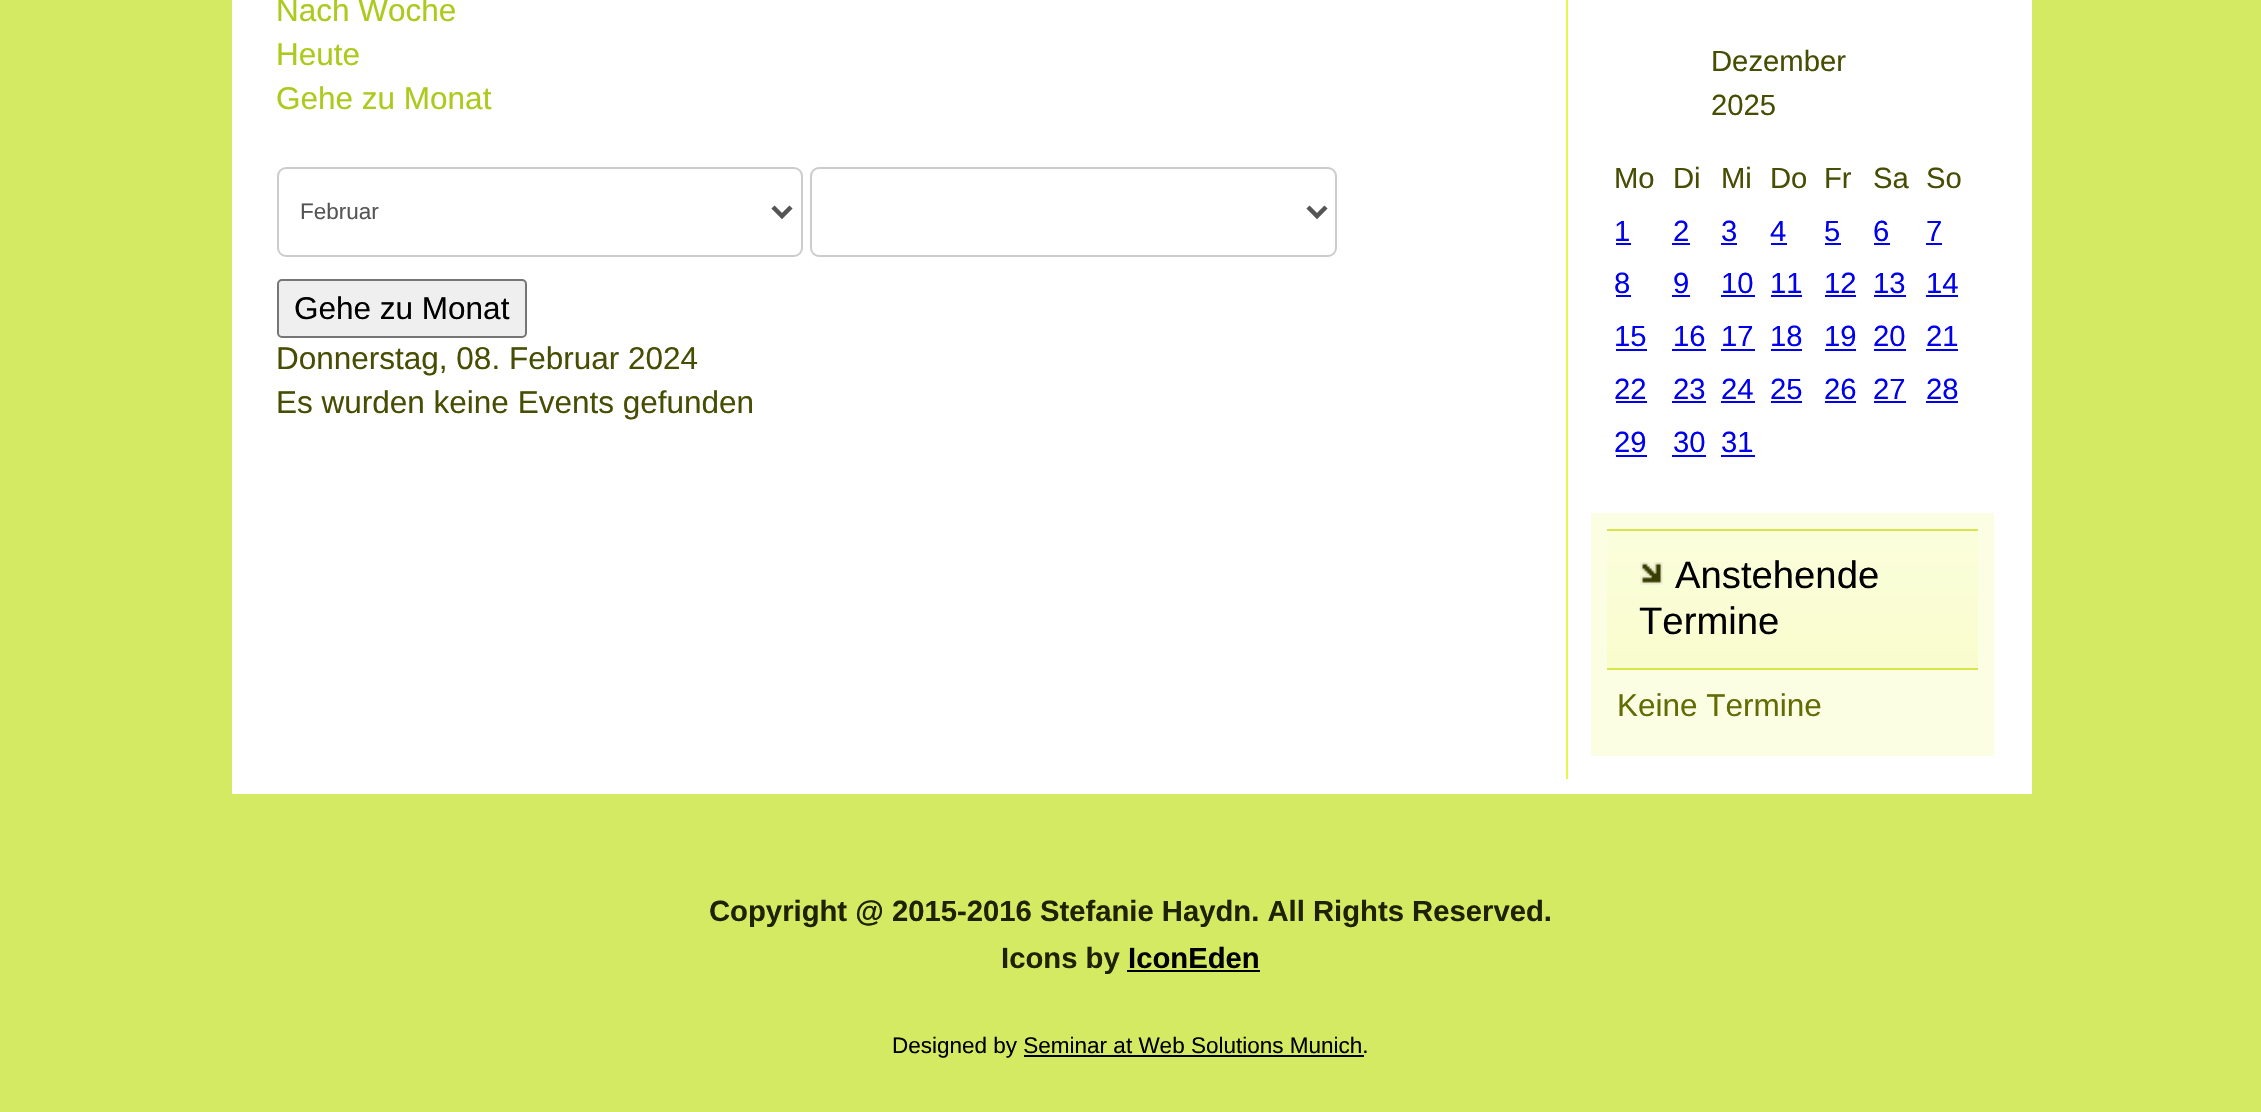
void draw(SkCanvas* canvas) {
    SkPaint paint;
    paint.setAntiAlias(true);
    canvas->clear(0xFFD3EA62);
    paint.setColor(0xFFFFFFFF);
    canvas->drawRect(SkRect::MakeXYWH(232, 0, 1800, 794), paint);
    SkFont font1(fontMgr->matchFamilyStyle("Liberation Sans", SkFontStyle::Normal()), 31.5f);
    font1.setSubpixel(true);
    paint.setColor(0xFFADCA1C);
    canvas->drawString("Nach Woche", 276, 21, font1, paint);
    canvas->drawString("Heute", 276, 65, font1, paint);
    canvas->drawString("Gehe zu Monat", 276, 109, font1, paint);
    paint.setStyle(SkPaint::kStroke_Style);
    paint.setStrokeWidth(2);
    paint.setColor(0xFFCCCCCC);
    canvas->drawRoundRect(SkRect::MakeXYWH(278, 168, 524, 88), 8, 8, paint);
    paint.setStrokeWidth(4.5f);
    paint.setColor(0xFF555555);
    canvas->drawPath(SkPathBuilder().moveTo(773, 207).lineTo(782, 216).lineTo(791, 207).detach(), paint);
    SkFont font2(fontMgr->matchFamilyStyle("Liberation Sans", SkFontStyle::Normal()), 22.5f);
    font2.setSubpixel(true);
    paint.setStyle(SkPaint::kFill_Style);
    canvas->drawString("Februar", 300, 219, font2, paint);
    paint.setStyle(SkPaint::kStroke_Style);
    paint.setStrokeWidth(2);
    paint.setColor(0xFFCCCCCC);
    canvas->drawRoundRect(SkRect::MakeXYWH(811, 168, 525, 88), 8, 8, paint);
    paint.setStrokeWidth(4.5f);
    paint.setColor(0xFF555555);
    canvas->drawPath(SkPathBuilder().moveTo(1308, 207).lineTo(1317, 216).lineTo(1326, 207).detach(), paint);
    paint.setStyle(SkPaint::kFill_Style);
    paint.setColor(0xFFEFEFEF);
    canvas->drawRoundRect(SkRect::MakeXYWH(278, 280, 248, 57), 4, 4, paint);
    paint.setStyle(SkPaint::kStroke_Style);
    paint.setStrokeWidth(2);
    paint.setColor(0xFF767676);
    canvas->drawRoundRect(SkRect::MakeXYWH(278, 280, 248, 57), 4, 4, paint);
    paint.setStyle(SkPaint::kFill_Style);
    paint.setColor(0xFF000000);
    canvas->drawString("Gehe zu Monat", 294, 319, font1, paint);
    paint.setColor(0xFF474E03);
    canvas->drawString("Donnerstag, 08. Februar 2024", 276, 369, font1, paint);
    canvas->drawString("Es wurden keine Events gefunden", 276, 413, font1, paint);
    paint.setColor(0xFFE6F74A);
    canvas->drawRect(SkRect::MakeXYWH(1566, 0, 2, 779), paint);
    SkFont font3(fontMgr->matchFamilyStyle("Liberation Sans", SkFontStyle::Normal()), 29.25f);
    font3.setSubpixel(true);
    paint.setColor(0xFF474E03);
    canvas->drawString("Dezember", 1711, 71, font3, paint);
    canvas->drawString("2025", 1711, 115, font3, paint);
    canvas->drawString("Mo", 1614, 188, font3, paint);
    canvas->drawString("Di", 1673, 188, font3, paint);
    canvas->drawString("Mi", 1721, 188, font3, paint);
    canvas->drawString("Do", 1770, 188, font3, paint);
    canvas->drawString("Fr", 1824, 188, font3, paint);
    canvas->drawString("Sa", 1873, 188, font3, paint);
    canvas->drawString("So", 1926, 188, font3, paint);
    paint.setColor(0xFF0000EE);
    canvas->drawString("1", 1614, 241, font3, paint);
    canvas->drawRect(SkRect::MakeXYWH(1616, 243, 15, 2), paint);
    canvas->drawString("2", 1673, 241, font3, paint);
    canvas->drawRect(SkRect::MakeXYWH(1672, 243, 18, 2), paint);
    canvas->drawString("3", 1721, 241, font3, paint);
    canvas->drawRect(SkRect::MakeXYWH(1721, 243, 16, 2), paint);
    canvas->drawString("4", 1770, 241, font3, paint);
    canvas->drawRect(SkRect::MakeXYWH(1771, 243, 16, 2), paint);
    canvas->drawString("5", 1824, 241, font3, paint);
    canvas->drawRect(SkRect::MakeXYWH(1825, 243, 16, 2), paint);
    canvas->drawString("6", 1873, 241, font3, paint);
    canvas->drawRect(SkRect::MakeXYWH(1874, 243, 16, 2), paint);
    canvas->drawString("7", 1926, 241, font3, paint);
    canvas->drawRect(SkRect::MakeXYWH(1926, 243, 16, 2), paint);
    canvas->drawString("8", 1614, 293, font3, paint);
    canvas->drawRect(SkRect::MakeXYWH(1616, 295, 15, 2), paint);
    canvas->drawString("9", 1673, 293, font3, paint);
    canvas->drawRect(SkRect::MakeXYWH(1672, 295, 18, 2), paint);
    canvas->drawString("10", 1721, 293, font3, paint);
    canvas->drawRect(SkRect::MakeXYWH(1721, 295, 34, 2), paint);
    canvas->drawString("11", 1770, 293, font3, paint);
    canvas->drawRect(SkRect::MakeXYWH(1771, 295, 31, 2), paint);
    canvas->drawString("12", 1824, 293, font3, paint);
    canvas->drawRect(SkRect::MakeXYWH(1825, 295, 31, 2), paint);
    canvas->drawString("13", 1873, 293, font3, paint);
    canvas->drawRect(SkRect::MakeXYWH(1874, 295, 32, 2), paint);
    canvas->drawString("14", 1926, 293, font3, paint);
    canvas->drawRect(SkRect::MakeXYWH(1926, 295, 32, 2), paint);
    canvas->drawString("15", 1614, 346, font3, paint);
    canvas->drawRect(SkRect::MakeXYWH(1616, 349, 31, 2), paint);
    canvas->drawString("16", 1673, 346, font3, paint);
    canvas->drawRect(SkRect::MakeXYWH(1672, 349, 34, 2), paint);
    canvas->drawString("17", 1721, 346, font3, paint);
    canvas->drawRect(SkRect::MakeXYWH(1721, 349, 34, 2), paint);
    canvas->drawString("18", 1770, 346, font3, paint);
    canvas->drawRect(SkRect::MakeXYWH(1771, 349, 31, 2), paint);
    canvas->drawString("19", 1824, 346, font3, paint);
    canvas->drawRect(SkRect::MakeXYWH(1825, 349, 31, 2), paint);
    canvas->drawString("20", 1873, 346, font3, paint);
    canvas->drawRect(SkRect::MakeXYWH(1874, 349, 32, 2), paint);
    canvas->drawString("21", 1926, 346, font3, paint);
    canvas->drawRect(SkRect::MakeXYWH(1926, 349, 32, 2), paint);
    canvas->drawString("22", 1614, 399, font3, paint);
    canvas->drawRect(SkRect::MakeXYWH(1616, 401, 31, 2), paint);
    canvas->drawString("23", 1673, 399, font3, paint);
    canvas->drawRect(SkRect::MakeXYWH(1672, 401, 34, 2), paint);
    canvas->drawString("24", 1721, 399, font3, paint);
    canvas->drawRect(SkRect::MakeXYWH(1721, 401, 34, 2), paint);
    canvas->drawString("25", 1770, 399, font3, paint);
    canvas->drawRect(SkRect::MakeXYWH(1771, 401, 31, 2), paint);
    canvas->drawString("26", 1824, 399, font3, paint);
    canvas->drawRect(SkRect::MakeXYWH(1825, 401, 31, 2), paint);
    canvas->drawString("27", 1873, 399, font3, paint);
    canvas->drawRect(SkRect::MakeXYWH(1874, 401, 32, 2), paint);
    canvas->drawString("28", 1926, 399, font3, paint);
    canvas->drawRect(SkRect::MakeXYWH(1926, 401, 32, 2), paint);
    canvas->drawString("29", 1614, 452, font3, paint);
    canvas->drawRect(SkRect::MakeXYWH(1616, 455, 31, 2), paint);
    canvas->drawString("30", 1673, 452, font3, paint);
    canvas->drawRect(SkRect::MakeXYWH(1672, 455, 34, 2), paint);
    canvas->drawString("31", 1721, 452, font3, paint);
    canvas->drawRect(SkRect::MakeXYWH(1721, 455, 34, 2), paint);
    paint.setColor(0xFFFCFEE4);
    canvas->drawRect(SkRect::MakeXYWH(1591, 513, 403, 243), paint);
    {
        const SkColor colors[] = {0xFFFBFEDC, 0xFFF9FDCE, 0xFFF8FCCE};
        const float stops[] = {0, 0.9f, 1};
        const SkPoint ends[] = {{1792, 531}, {1792, 668}};
        paint.setShader(SkGradientShader::MakeLinear(ends, colors, stops, 3, SkTileMode::kClamp));
        paint.setAlpha(255);
    }
    canvas->drawRect(SkRect::MakeXYWH(1607, 531, 371, 137), paint);
    paint.setShader(nullptr);
    paint.setColor(0xFFD7E64B);
    canvas->drawRect(SkRect::MakeXYWH(1607, 529, 371, 2), paint);
    canvas->drawRect(SkRect::MakeXYWH(1607, 668, 371, 2), paint);
    canvas->drawImageRect(SkImages::DeferredFromEncodedData(SkData::MakeFromFileName("img1.png")), SkRect::MakeXYWH(1640, 562, 23, 23), SkSamplingOptions());
    SkFont font4(fontMgr->matchFamilyStyle("Liberation Sans", SkFontStyle::Normal()), 38.25f);
    font4.setSubpixel(true);
    paint.setColor(0xFF000000);
    canvas->drawString("Anstehende", 1675, 588, font4, paint);
    canvas->drawString("Termine", 1639, 634, font4, paint);
    paint.setColor(0xFF616C04);
    canvas->drawString("Keine Termine", 1617, 716, font1, paint);
    SkFont font5(fontMgr->matchFamilyStyle("Liberation Sans", SkFontStyle::Bold()), 29.25f);
    font5.setSubpixel(true);
    paint.setColor(0xFF1F2201);
    canvas->drawString("Copyright @ 2015-2016 Stefanie Haydn. All Rights Reserved.", 709, 921, font5, paint);
    canvas->drawString("Icons by", 1001, 968, font5, paint);
    paint.setColor(0xFF000000);
    canvas->drawString("IconEden", 1128, 968, font5, paint);
    canvas->drawRect(SkRect::MakeXYWH(1127, 970, 133, 2), paint);
    canvas->drawString("Designed by Seminar at Web Solutions Munich.", 892, 1053, font2, paint);
    canvas->drawRect(SkRect::MakeXYWH(1024, 1055, 340, 2), paint);
}
